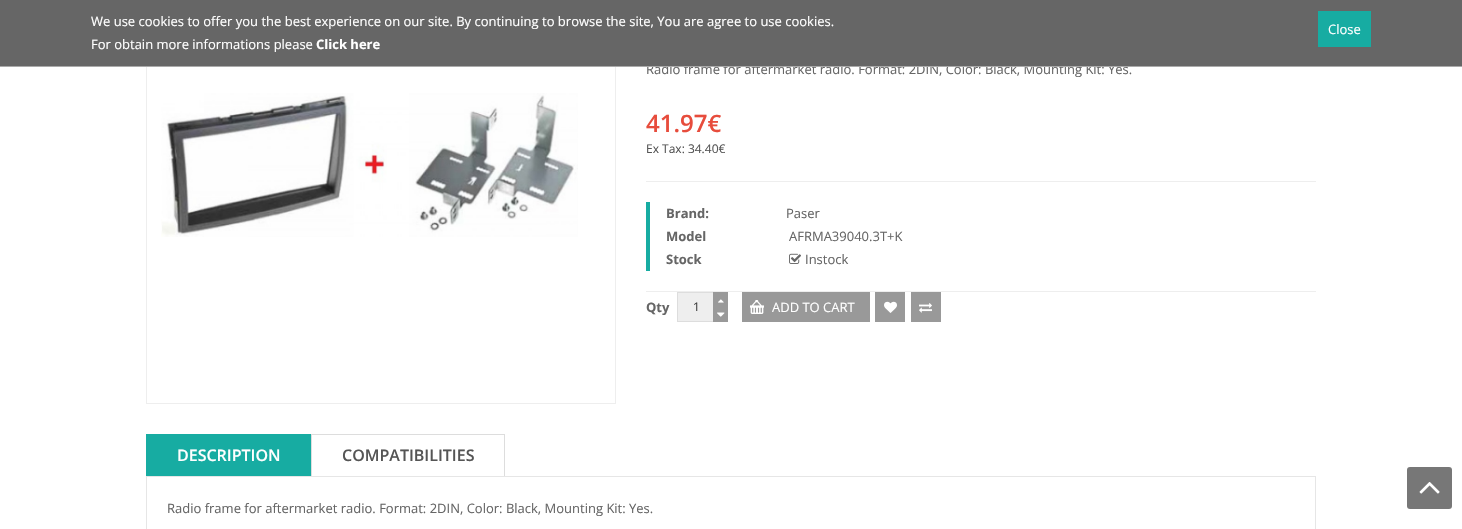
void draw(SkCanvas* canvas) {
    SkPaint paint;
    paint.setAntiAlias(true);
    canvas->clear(0xFFFFFFFF);
    paint.setStyle(SkPaint::kStroke_Style);
    paint.setStrokeWidth(1);
    paint.setColor(0xFFEEEEEE);
    canvas->drawRect(SkRect::MakeXYWH(146.5f, -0.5f, 469, 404), paint);
    paint.setStyle(SkPaint::kFill_Style);
    paint.setColor(0xFF666666);
    canvas->drawRect(SkRect::MakeXYWH(0, 0, 1462, 66), paint);
    SkFont font1(fontMgr->matchFamilyStyle("Open Sans", SkFontStyle::Normal()), 13);
    font1.setSubpixel(true);
    canvas->drawString("Radio frame for aftermarket radio. Format: 2DIN, Color: Black, Mounting Kit: Yes.", 646, 74, font1, paint);
    paint.setColor(0xFFAAAAAA);
    canvas->drawRect(SkRect::MakeXYWH(0, 66, 1462, 1), paint);
    paint.setColor(0xFFFFFFFF);
    canvas->drawString("We use cookies to offer you the best experience on our site. By continuing to browse the site, You are agree to use cookies.", 91, 26, font1, paint);
    paint.setColor(0xFF17ACA2);
    canvas->drawRect(SkRect::MakeXYWH(1318, 11, 53, 36), paint);
    paint.setColor(0xFFFFFFFF);
    canvas->drawString("Close", 1328, 34, font1, paint);
    canvas->drawString("For obtain more informations please", 91, 49, font1, paint);
    SkFont font2(fontMgr->matchFamilyStyle("Open Sans", SkFontStyle::Bold()), 13);
    font2.setSubpixel(true);
    canvas->drawString("Click here", 316, 49, font2, paint);
    canvas->drawImageRect(SkImages::DeferredFromEncodedData(SkData::MakeFromFileName("img1.png")), SkRect::MakeXYWH(161, 93, 417, 144), SkSamplingOptions());
    SkFont font3(fontMgr->matchFamilyStyle("Open Sans", SkFontStyle(600, SkFontStyle::kNormal_Width, SkFontStyle::kUpright_Slant)), 24);
    font3.setSubpixel(true);
    paint.setColor(0xFFE74C3C);
    canvas->drawString("41.97€", 646, 132, font3, paint);
    SkFont font4(fontMgr->matchFamilyStyle("Open Sans", SkFontStyle::Normal()), 12);
    font4.setSubpixel(true);
    paint.setColor(0xFF555555);
    canvas->drawString("Ex Tax: 34.40€", 646, 153, font4, paint);
    paint.setColor(0xFFEEEEEE);
    canvas->drawRect(SkRect::MakeXYWH(646, 181, 670, 1), paint);
    canvas->drawRect(SkRect::MakeXYWH(646, 291, 670, 1), paint);
    paint.setColor(0xFF17ACA2);
    canvas->drawRect(SkRect::MakeXYWH(646, 202, 4, 69), paint);
    paint.setColor(0xFF666666);
    canvas->drawString("Brand:", 666, 218, font2, paint);
    canvas->drawString("Paser", 786, 218, font1, paint);
    canvas->drawString("Model", 666, 241, font2, paint);
    canvas->drawString("AFRMA39040.3T+K", 789, 241, font1, paint);
    canvas->drawString("Stock", 666, 264, font2, paint);
    canvas->drawImageRect(SkImages::DeferredFromEncodedData(SkData::MakeFromFileName("img2.png")), SkRect::MakeXYWH(789, 253, 12, 11), SkSamplingOptions());
    canvas->drawString("Instock", 805, 264, font1, paint);
    paint.setColor(0xFFEEEEEE);
    canvas->drawRect(SkRect::MakeXYWH(678, 293, 35, 28), paint);
    paint.setStyle(SkPaint::kStroke_Style);
    paint.setColor(0xFFDDDDDD);
    canvas->drawRect(SkRect::MakeXYWH(677.5f, 292.5f, 37, 29), paint);
    paint.setStyle(SkPaint::kFill_Style);
    paint.setColor(0xFF999999);
    canvas->drawRect(SkRect::MakeXYWH(713, 292, 15, 30), paint);
    canvas->drawImageRect(SkImages::DeferredFromEncodedData(SkData::MakeFromFileName("img3.png")), SkRect::MakeXYWH(717, 312, 8, 5), SkSamplingOptions());
    canvas->drawImageRect(SkImages::DeferredFromEncodedData(SkData::MakeFromFileName("img4.png")), SkRect::MakeXYWH(718, 299, 6, 4), SkSamplingOptions());
    paint.setColor(0xFF666666);
    canvas->drawString("Qty", 646, 312, font2, paint);
    paint.setColor(0xFF3D3D3D);
    canvas->drawString("1", 693, 311, font4, paint);
    paint.setColor(0xFF999999);
    canvas->drawRect(SkRect::MakeXYWH(742, 292, 128, 30), paint);
    canvas->drawImageRect(SkImages::DeferredFromEncodedData(SkData::MakeFromFileName("img5.png")), SkRect::MakeXYWH(750, 300, 14, 14), SkSamplingOptions());
    paint.setColor(0xFFFFFFFF);
    canvas->drawString("ADD TO CART", 772, 312, font1, paint);
    paint.setColor(0xFF999999);
    canvas->drawRect(SkRect::MakeXYWH(875, 292, 30, 30), paint);
    canvas->drawImageRect(SkImages::DeferredFromEncodedData(SkData::MakeFromFileName("img6.png")), SkRect::MakeXYWH(884, 301, 13, 12), SkSamplingOptions());
    canvas->drawRect(SkRect::MakeXYWH(911, 292, 30, 30), paint);
    canvas->drawImageRect(SkImages::DeferredFromEncodedData(SkData::MakeFromFileName("img7.png")), SkRect::MakeXYWH(919, 303, 13, 10), SkSamplingOptions());
    paint.setStyle(SkPaint::kStroke_Style);
    paint.setColor(0xFF17ACA2);
    canvas->drawRect(SkRect::MakeXYWH(146.5f, 434.5f, 165, 42), paint);
    paint.setStyle(SkPaint::kFill_Style);
    canvas->drawRect(SkRect::MakeXYWH(147, 435, 164, 41), paint);
    SkFont font5(fontMgr->matchFamilyStyle("Open Sans", SkFontStyle(600, SkFontStyle::kNormal_Width, SkFontStyle::kUpright_Slant)), 16);
    font5.setSubpixel(true);
    paint.setColor(0xFFFFFFFF);
    canvas->drawString("DESCRIPTION", 177, 461, font5, paint);
    paint.setStyle(SkPaint::kStroke_Style);
    paint.setColor(0xFFDDDDDD);
    canvas->drawRect(SkRect::MakeXYWH(311.5f, 434.5f, 193, 42), paint);
    paint.setStyle(SkPaint::kFill_Style);
    paint.setColor(0xFF555555);
    canvas->drawString("COMPATIBILITIES", 342, 461, font5, paint);
    paint.setStyle(SkPaint::kStroke_Style);
    paint.setColor(0xFFE6E6E6);
    canvas->drawRect(SkRect::MakeXYWH(146.5f, 476.5f, 1169, 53), paint);
    paint.setStyle(SkPaint::kFill_Style);
    paint.setColor(0xFF666666);
    canvas->drawString("Radio frame for aftermarket radio. Format: 2DIN, Color: Black, Mounting Kit: Yes.", 167, 513, font1, paint);
    paint.setColor(0xFF777777);
    canvas->drawRoundRect(SkRect::MakeXYWH(1407, 467, 45, 42), 3, 3, paint);
    canvas->drawImageRect(SkImages::DeferredFromEncodedData(SkData::MakeFromFileName("img8.png")), SkRect::MakeXYWH(1419, 482, 21, 12), SkSamplingOptions());
}
